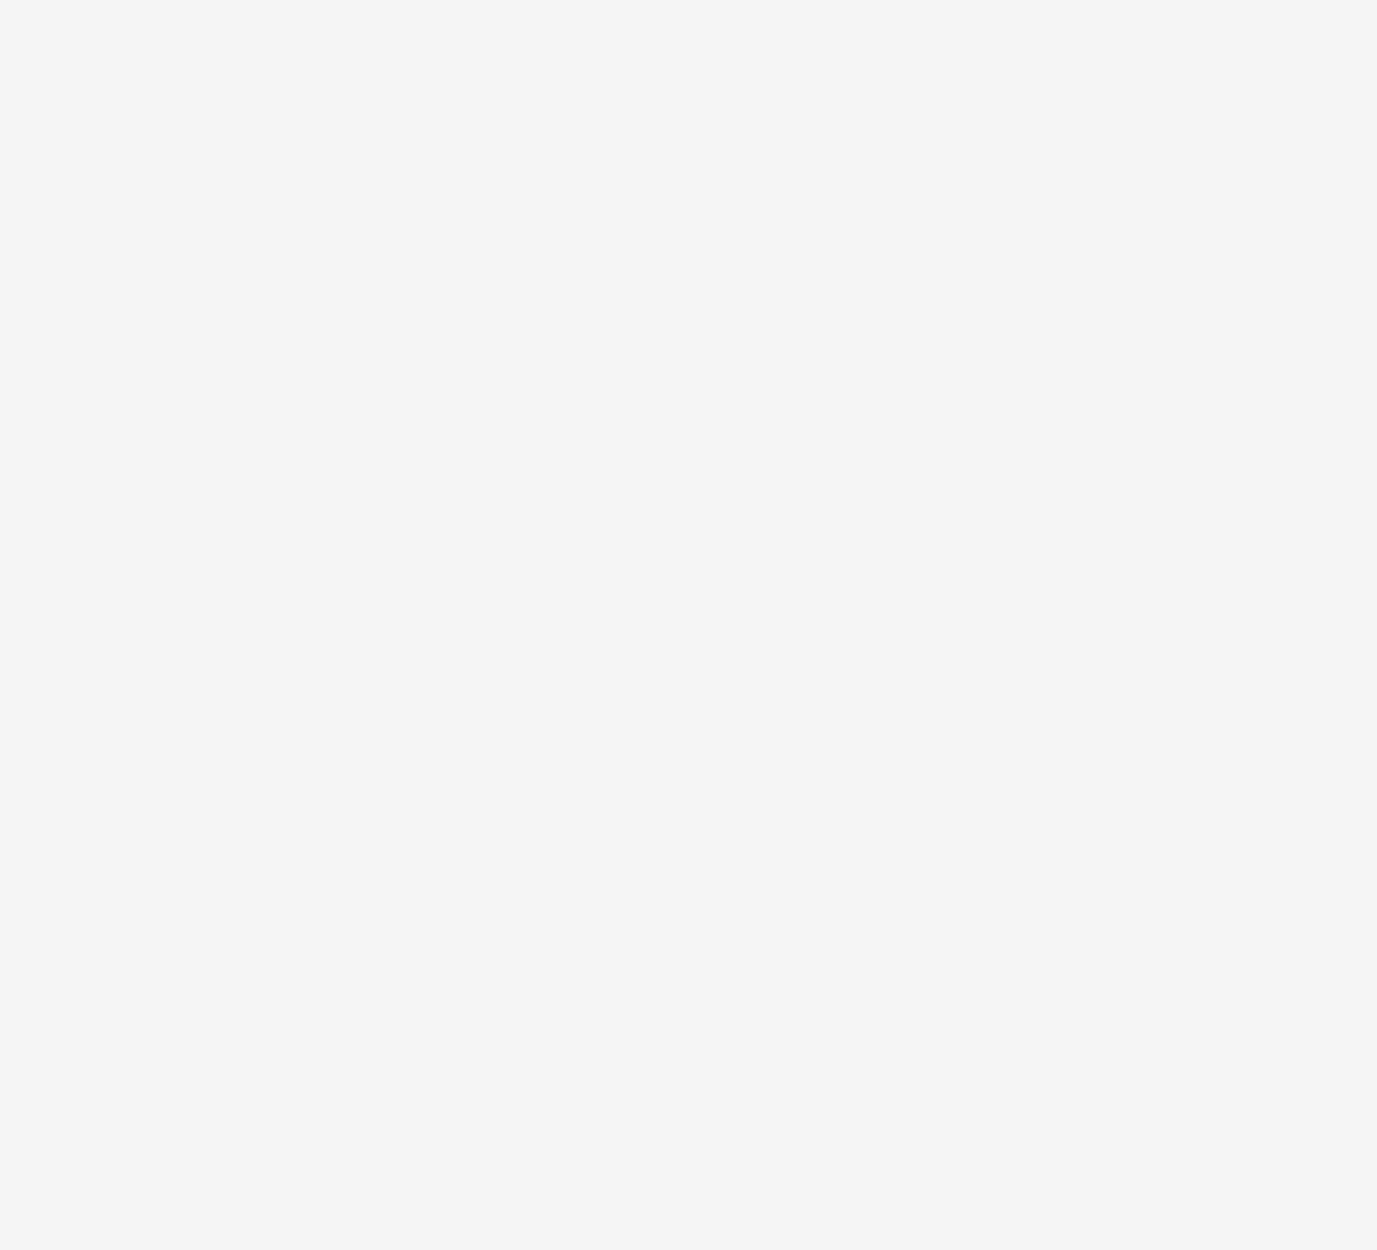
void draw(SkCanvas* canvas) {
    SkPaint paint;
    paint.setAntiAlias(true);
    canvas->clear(0xFFF5F5F5);
    canvas->drawImageRect(SkImages::DeferredFromEncodedData(SkData::MakeFromFileName("img1.png")), SkRect::MakeXYWH(1221, 407, 42, 43), SkSamplingOptions());
}
